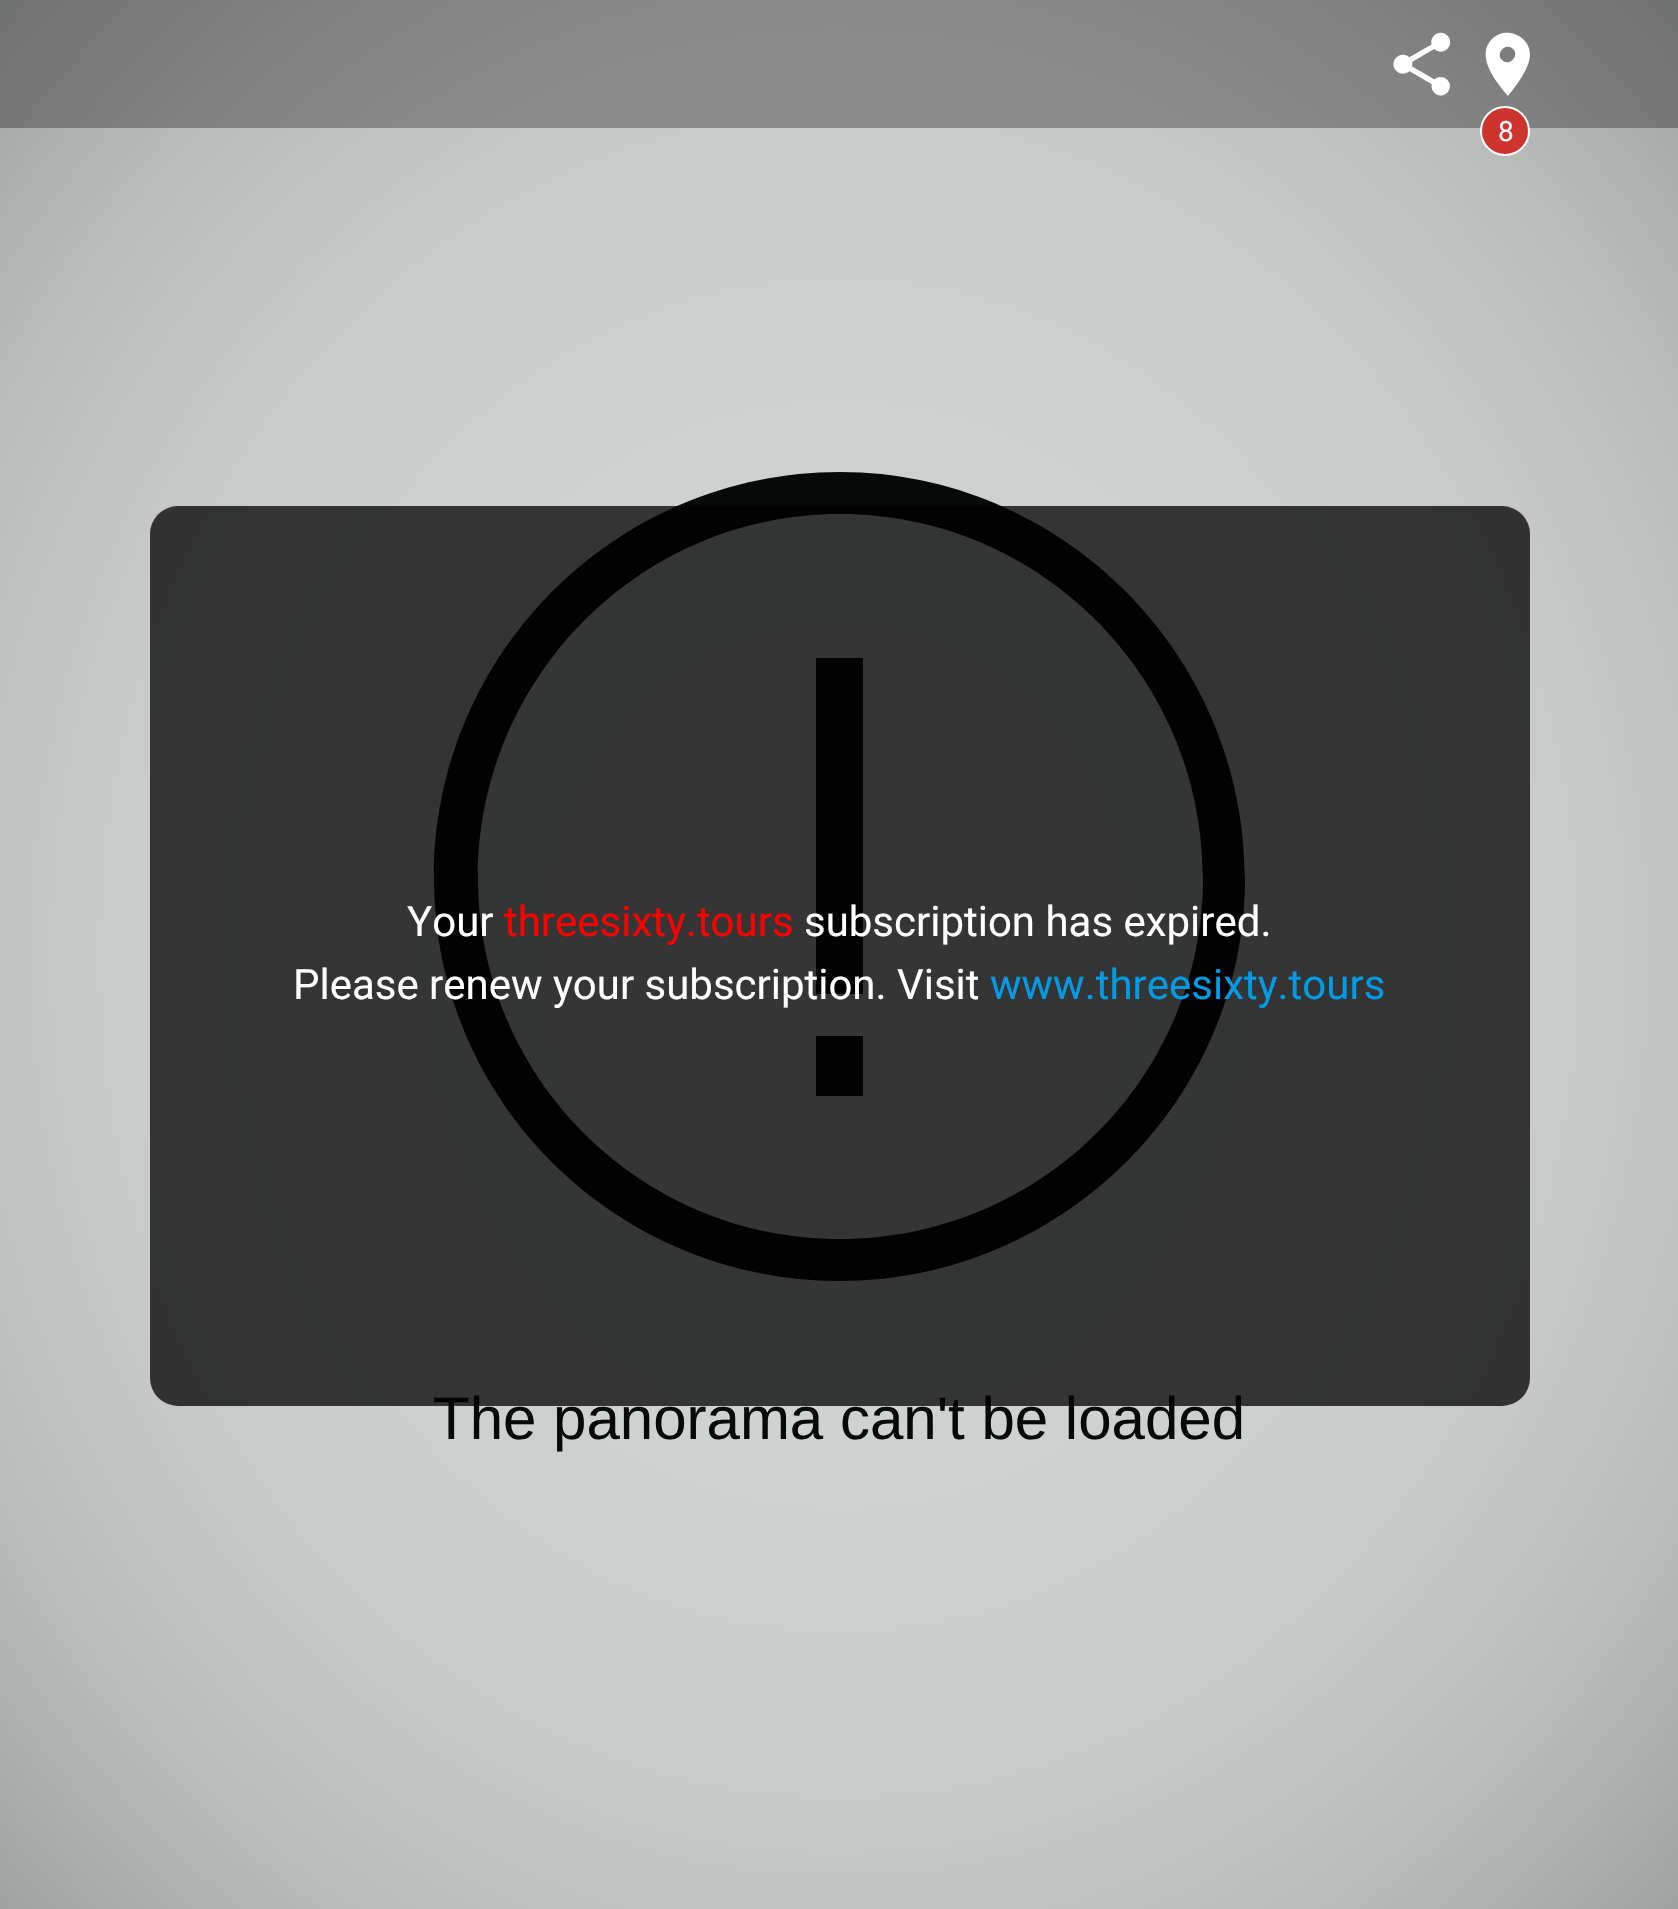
void draw(SkCanvas* canvas) {
    SkPaint paint;
    paint.setAntiAlias(true);
    canvas->clear(0xFFFFFFFF);
    {
        const SkColor colors[] = {0xFF949494, 0xFF929393, 0xFF929292, 0xFF909090, 0xFF8B8B8B, 0xFF828282, 0xFF707171};
        const float stops[] = {0, 0.16f, 0.33f, 0.49f, 0.66f, 0.82f, 1};
        SkMatrix m = SkMatrix::Translate(839, 955).preScale(1187, 1351);
        paint.setShader(SkGradientShader::MakeRadial({0, 0}, 1, colors, stops, 7, SkTileMode::kClamp, 0, &m));
        paint.setAlpha(255);
    }
    canvas->drawRect(SkRect::MakeXYWH(0, 0, 1678, 128), paint);
    canvas->drawImageRect(SkImages::DeferredFromEncodedData(SkData::MakeFromFileName("img1.png")), SkRect::MakeXYWH(1393, 32, 58, 64), SkSamplingOptions());
    paint.setShader(nullptr);
    paint.setColor(0xFFFFFFFF);
    canvas->drawPath(SkPathBuilder().moveTo(1502, 60).cubicTo(1509, 67, 1520, 56, 1513, 49).cubicTo(1506, 42, 1495, 53, 1502, 60).close().moveTo(1492, 39).cubicTo(1506, 25, 1531, 36, 1530, 56).cubicTo(1529, 69, 1516, 86, 1508, 96).cubicTo(1496, 82, 1475, 56, 1492, 39).close().detach(), paint);
    {
        const SkColor colors[] = {0xFFD3D4D4, 0xFFD1D2D2, 0xFFD0D1D1, 0xFFCDCECE, 0xFFC6C7C7, 0xFFB9BABA, 0xFFA0A1A1};
        const float stops[] = {0, 0.16f, 0.33f, 0.49f, 0.66f, 0.82f, 1};
        SkMatrix m = SkMatrix::Translate(839, 955).preScale(1187, 1351);
        paint.setShader(SkGradientShader::MakeRadial({0, 0}, 1, colors, stops, 7, SkTileMode::kClamp, 0, &m));
        paint.setAlpha(255);
    }
    canvas->drawRect(SkRect::MakeXYWH(0, 128, 1678, 1781), paint);
    paint.setShader(nullptr);
    paint.setColor(0xFFCF332E);
    canvas->drawCircle(1505, 131, 24, paint);
    paint.setStyle(SkPaint::kStroke_Style);
    paint.setStrokeWidth(2);
    paint.setColor(0xFFFFFFFF);
    canvas->drawCircle(1505, 131, 24, paint);
    SkFont font1(fontMgr->matchFamilyStyle("Roboto", SkFontStyle::Normal()), 28);
    font1.setSubpixel(true);
    paint.setStyle(SkPaint::kFill_Style);
    canvas->drawString("8", 1498, 141, font1, paint);
    paint.setColor(0xFF070808);
    canvas->drawPath(SkPathBuilder().moveTo(840, 472).cubicTo(617, 472, 434, 653, 434, 878).cubicTo(434, 1102, 617, 1281, 840, 1281).cubicTo(1062, 1281, 1245, 1100, 1245, 878).cubicTo(1245, 655, 1062, 472, 840, 472).close().moveTo(840, 1239).cubicTo(639, 1239, 478, 1076, 478, 878).cubicTo(478, 679, 639, 514, 840, 514).cubicTo(1040, 514, 1203, 677, 1203, 878).cubicTo(1203, 1078, 1040, 1239, 840, 1239).close().detach(), paint);
    canvas->drawRect(SkRect::MakeXYWH(816, 658, 47, 336), paint);
    canvas->drawRect(SkRect::MakeXYWH(816, 1036, 47, 60), paint);
    SkFont font2(fontMgr->matchFamilyStyle("Liberation Sans", SkFontStyle::Normal()), 60);
    font2.setSubpixel(true);
    canvas->drawString("The panorama can't be loaded", 433, 1439, font2, paint);
    paint.setColor(0xBF000000);
    canvas->drawRoundRect(SkRect::MakeXYWH(150, 506, 1380, 900), 28, 28, paint);
    SkFont font3(fontMgr->matchFamilyStyle("Roboto", SkFontStyle::Normal()), 42);
    font3.setSubpixel(true);
    paint.setColor(0xFFFFFFFF);
    canvas->drawString("Your", 407, 936, font3, paint);
    paint.setColor(0xFFFF0000);
    canvas->drawString("threesixty.tours", 504, 936, font3, paint);
    paint.setColor(0xFFFFFFFF);
    canvas->drawString("subscription has expired.", 804, 936, font3, paint);
    canvas->drawString("Please renew your subscription. Visit", 293, 999, font3, paint);
    paint.setColor(0xFF039BE5);
    canvas->drawString("www.threesixty.tours", 990, 999, font3, paint);
}
